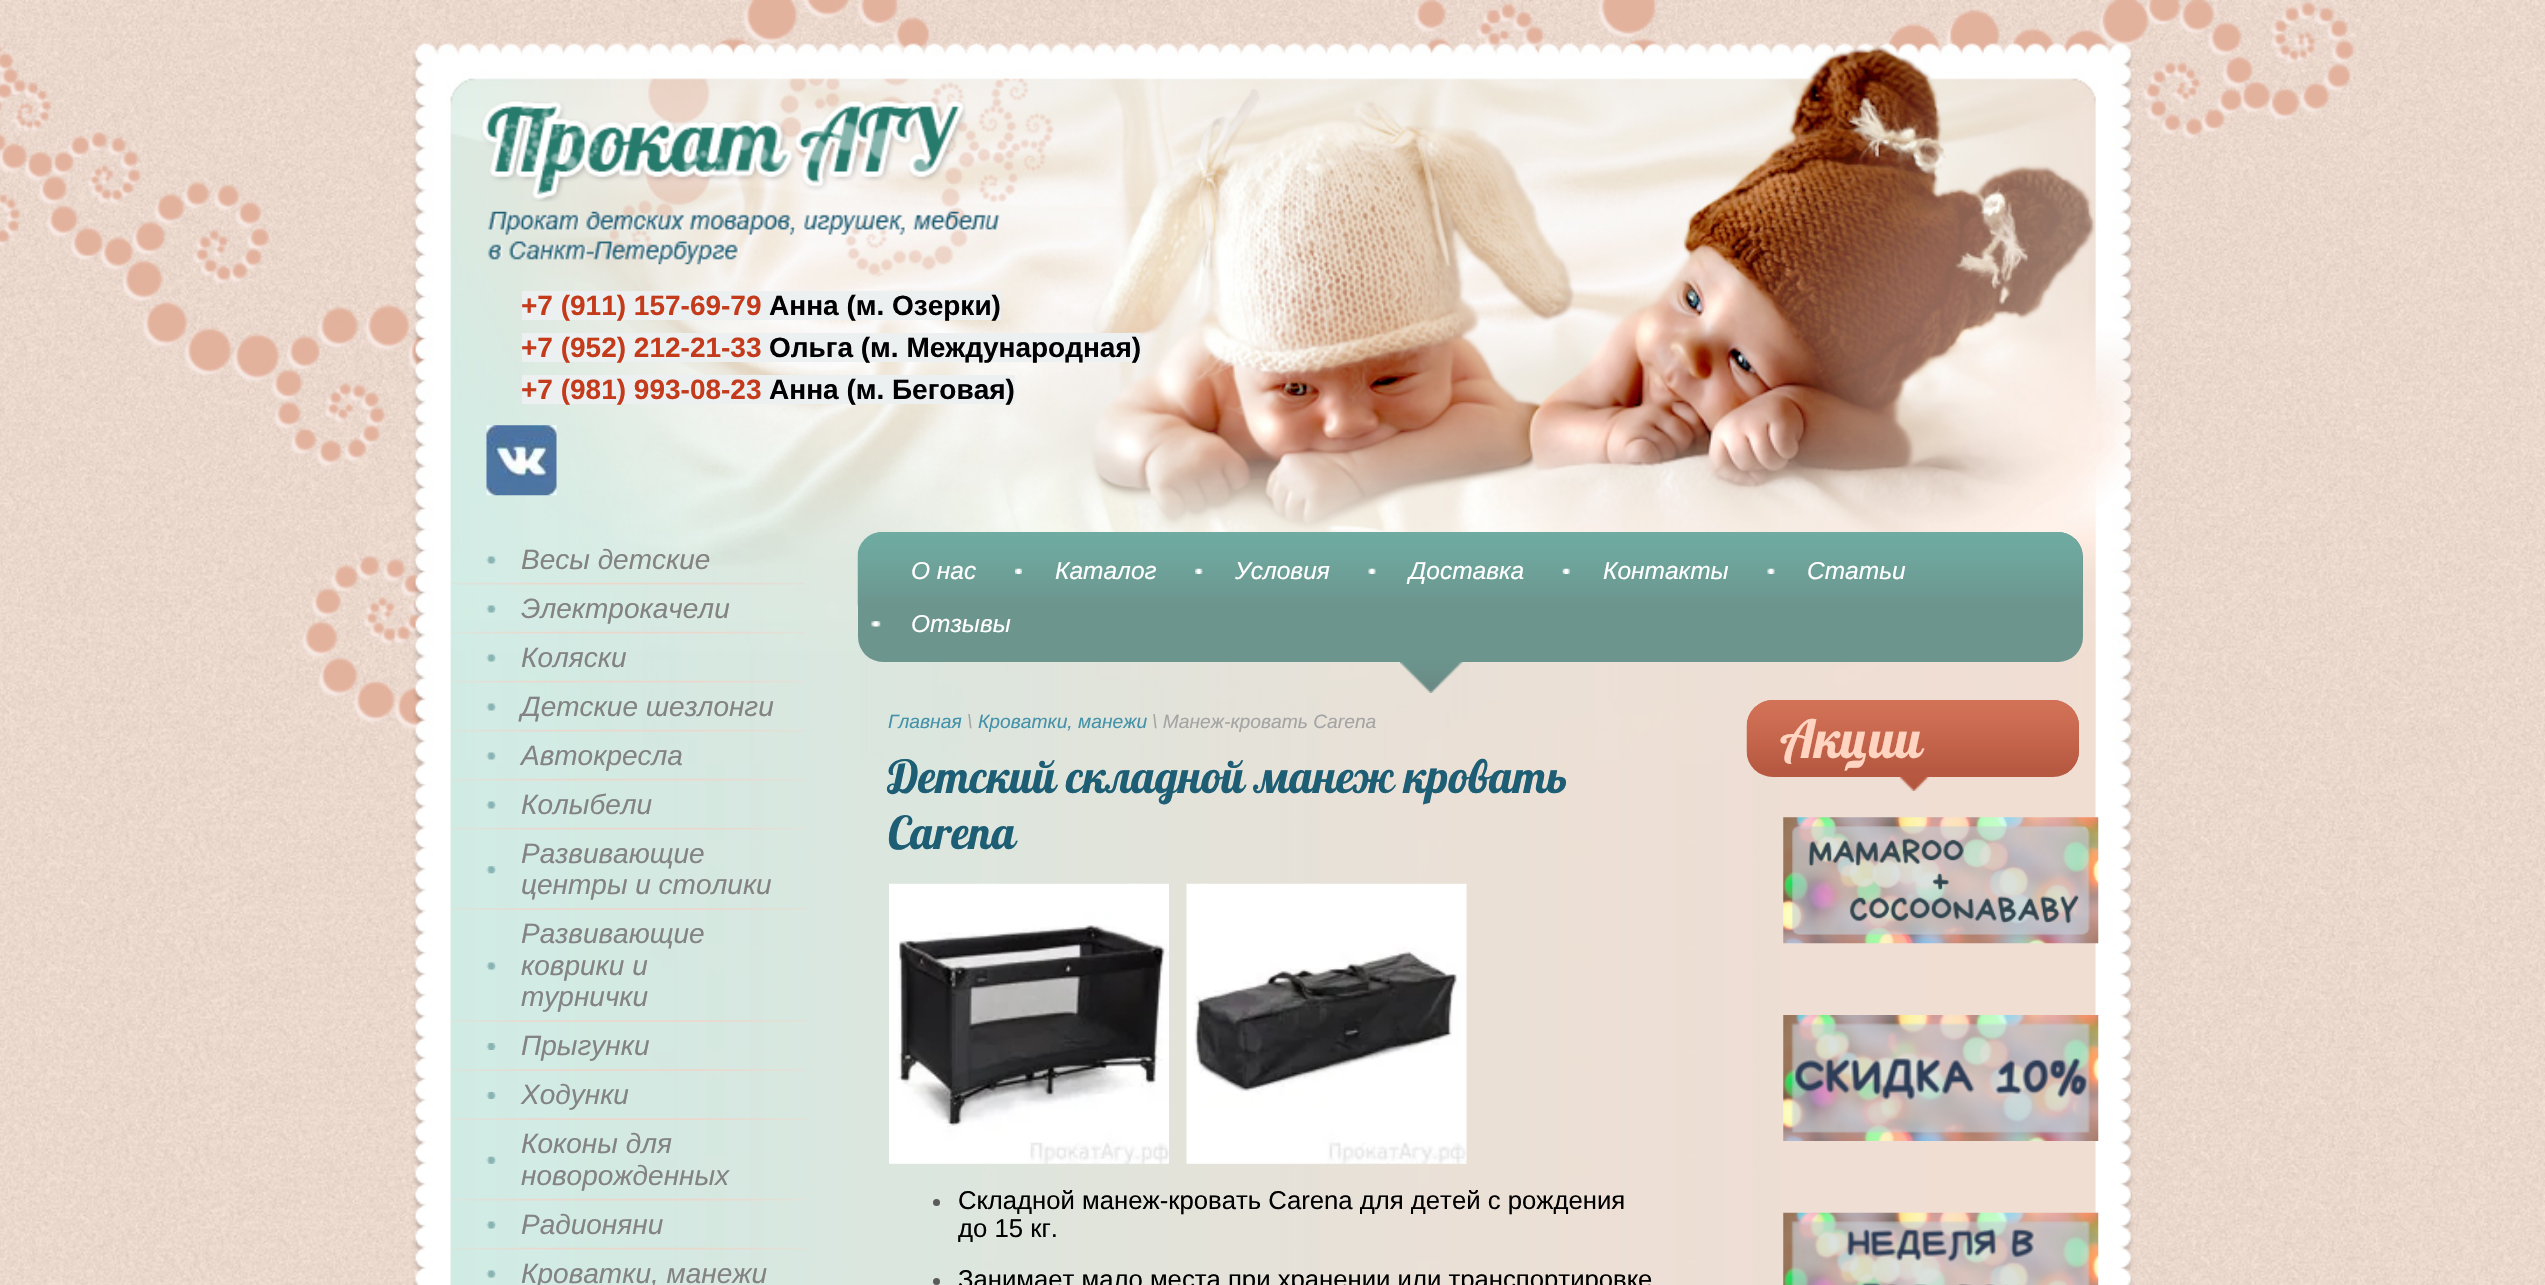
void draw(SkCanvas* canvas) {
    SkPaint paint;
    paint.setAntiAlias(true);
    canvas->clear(0xFFFFFFFF);
    canvas->drawImageRect(SkImages::DeferredFromEncodedData(SkData::MakeFromFileName("img1.png")), SkRect::MakeXYWH(0, 763, 2545, 522), SkSamplingOptions());
    canvas->drawImageRect(SkImages::DeferredFromEncodedData(SkData::MakeFromFileName("img2.png")), SkRect::MakeXYWH(0, 0, 2545, 763), SkSamplingOptions());
    canvas->drawImageRect(SkImages::DeferredFromEncodedData(SkData::MakeFromFileName("img3.png")), SkRect::MakeXYWH(481, 100, 485, 102), SkSamplingOptions());
    canvas->drawImageRect(SkImages::DeferredFromEncodedData(SkData::MakeFromFileName("img4.png")), SkRect::MakeXYWH(487, 211, 513, 54), SkSamplingOptions());
    paint.setColor(0xFFECF0F1);
    canvas->drawRect(SkRect::MakeXYWH(522, 291, 479, 29), paint);
    SkFont font1(fontMgr->matchFamilyStyle("Liberation Sans", SkFontStyle::Bold()), 28);
    font1.setSubpixel(true);
    paint.setColor(0xFFC43B1B);
    canvas->drawString("+7 (911) 157-69-79", 521, 315, font1, paint);
    paint.setColor(0xFF000000);
    canvas->drawString("Анна (м. Озерки)", 769, 315, font1, paint);
    paint.setColor(0xFFECF0F1);
    canvas->drawRect(SkRect::MakeXYWH(522, 333, 619, 29), paint);
    paint.setColor(0xFFC43B1B);
    canvas->drawString("+7 (952) 212-21-33", 521, 357, font1, paint);
    paint.setColor(0xFF000000);
    canvas->drawString("Ольга (м. Международная)", 769, 357, font1, paint);
    paint.setColor(0xFFECF0F1);
    canvas->drawRect(SkRect::MakeXYWH(522, 375, 493, 29), paint);
    paint.setColor(0xFFC43B1B);
    canvas->drawString("+7 (981) 993-08-23", 521, 399, font1, paint);
    paint.setColor(0xFF000000);
    canvas->drawString("Анна (м. Беговая)", 769, 399, font1, paint);
    canvas->drawImageRect(SkImages::DeferredFromEncodedData(SkData::MakeFromFileName("img5.png")), SkRect::MakeXYWH(486, 425, 71, 71), SkSamplingOptions());
    paint.setColor(0xFF6C958E);
    canvas->drawRoundRect(SkRect::MakeXYWH(858, 532, 1225, 130), 25, 25, paint);
    canvas->drawImageRect(SkImages::DeferredFromEncodedData(SkData::MakeFromFileName("img6.png")), SkRect::MakeXYWH(857, 532, 1226, 74), SkSamplingOptions());
    SkFont font2(fontMgr->matchFamilyStyle("Liberation Sans", SkFontStyle::Italic()), 24.5f);
    font2.setSubpixel(true);
    paint.setColor(0xFFFFFFFF);
    canvas->drawString("О нас", 911, 579, font2, paint);
    canvas->drawImageRect(SkImages::DeferredFromEncodedData(SkData::MakeFromFileName("img7.png")), SkRect::MakeXYWH(1015, 568, 7, 6), SkSamplingOptions());
    canvas->drawString("Каталог", 1055, 579, font2, paint);
    canvas->drawImageRect(SkImages::DeferredFromEncodedData(SkData::MakeFromFileName("img8.png")), SkRect::MakeXYWH(1195, 568, 8, 6), SkSamplingOptions());
    canvas->drawString("Условия", 1235, 579, font2, paint);
    canvas->drawImageRect(SkImages::DeferredFromEncodedData(SkData::MakeFromFileName("img9.png")), SkRect::MakeXYWH(1368, 568, 8, 6), SkSamplingOptions());
    canvas->drawString("Доставка", 1409, 579, font2, paint);
    canvas->drawImageRect(SkImages::DeferredFromEncodedData(SkData::MakeFromFileName("img10.png")), SkRect::MakeXYWH(1562, 568, 8, 6), SkSamplingOptions());
    canvas->drawString("Контакты", 1603, 579, font2, paint);
    canvas->drawImageRect(SkImages::DeferredFromEncodedData(SkData::MakeFromFileName("img9.png")), SkRect::MakeXYWH(1767, 568, 8, 6), SkSamplingOptions());
    canvas->drawString("Статьи", 1807, 579, font2, paint);
    canvas->drawImageRect(SkImages::DeferredFromEncodedData(SkData::MakeFromFileName("img11.png")), SkRect::MakeXYWH(871, 621, 10, 6), SkSamplingOptions());
    canvas->drawString("Отзывы", 911, 632, font2, paint);
    canvas->drawImageRect(SkImages::DeferredFromEncodedData(SkData::MakeFromFileName("img12.png")), SkRect::MakeXYWH(1400, 662, 63, 31), SkSamplingOptions());
    canvas->drawImageRect(SkImages::DeferredFromEncodedData(SkData::MakeFromFileName("img13.png")), SkRect::MakeXYWH(451, 582, 354, 3), SkSamplingOptions());
    canvas->drawImageRect(SkImages::DeferredFromEncodedData(SkData::MakeFromFileName("img14.png")), SkRect::MakeXYWH(486, 556, 10, 8), SkSamplingOptions());
    SkFont font3(fontMgr->matchFamilyStyle("Liberation Sans", SkFontStyle::Italic()), 28);
    font3.setSubpixel(true);
    paint.setColor(0xFF838383);
    canvas->drawString("Весы детские", 521, 569, font3, paint);
    canvas->drawImageRect(SkImages::DeferredFromEncodedData(SkData::MakeFromFileName("img15.png")), SkRect::MakeXYWH(451, 631, 354, 3), SkSamplingOptions());
    canvas->drawImageRect(SkImages::DeferredFromEncodedData(SkData::MakeFromFileName("img16.png")), SkRect::MakeXYWH(486, 605, 10, 8), SkSamplingOptions());
    canvas->drawString("Электрокачели", 521, 618, font3, paint);
    canvas->drawImageRect(SkImages::DeferredFromEncodedData(SkData::MakeFromFileName("img17.png")), SkRect::MakeXYWH(451, 680, 354, 3), SkSamplingOptions());
    canvas->drawImageRect(SkImages::DeferredFromEncodedData(SkData::MakeFromFileName("img18.png")), SkRect::MakeXYWH(486, 654, 10, 8), SkSamplingOptions());
    canvas->drawString("Коляски", 521, 667, font3, paint);
    canvas->drawImageRect(SkImages::DeferredFromEncodedData(SkData::MakeFromFileName("img19.png")), SkRect::MakeXYWH(451, 729, 354, 3), SkSamplingOptions());
    canvas->drawImageRect(SkImages::DeferredFromEncodedData(SkData::MakeFromFileName("img20.png")), SkRect::MakeXYWH(486, 703, 10, 8), SkSamplingOptions());
    canvas->drawString("Детские шезлонги", 521, 716, font3, paint);
    canvas->drawImageRect(SkImages::DeferredFromEncodedData(SkData::MakeFromFileName("img21.png")), SkRect::MakeXYWH(451, 778, 354, 3), SkSamplingOptions());
    canvas->drawImageRect(SkImages::DeferredFromEncodedData(SkData::MakeFromFileName("img20.png")), SkRect::MakeXYWH(486, 752, 10, 8), SkSamplingOptions());
    canvas->drawString("Автокресла", 521, 765, font3, paint);
    canvas->drawImageRect(SkImages::DeferredFromEncodedData(SkData::MakeFromFileName("img22.png")), SkRect::MakeXYWH(451, 827, 354, 3), SkSamplingOptions());
    canvas->drawImageRect(SkImages::DeferredFromEncodedData(SkData::MakeFromFileName("img23.png")), SkRect::MakeXYWH(486, 801, 10, 8), SkSamplingOptions());
    canvas->drawString("Колыбели", 521, 814, font3, paint);
    canvas->drawImageRect(SkImages::DeferredFromEncodedData(SkData::MakeFromFileName("img24.png")), SkRect::MakeXYWH(451, 908, 354, 2), SkSamplingOptions());
    canvas->drawImageRect(SkImages::DeferredFromEncodedData(SkData::MakeFromFileName("img25.png")), SkRect::MakeXYWH(486, 866, 10, 8), SkSamplingOptions());
    canvas->drawString("Развивающие", 521, 863, font3, paint);
    canvas->drawString("центры и столики", 521, 894, font3, paint);
    canvas->drawImageRect(SkImages::DeferredFromEncodedData(SkData::MakeFromFileName("img26.png")), SkRect::MakeXYWH(451, 1020, 354, 2), SkSamplingOptions());
    canvas->drawImageRect(SkImages::DeferredFromEncodedData(SkData::MakeFromFileName("img23.png")), SkRect::MakeXYWH(486, 962, 10, 8), SkSamplingOptions());
    canvas->drawString("Развивающие", 521, 943, font3, paint);
    canvas->drawString("коврики и", 521, 975, font3, paint);
    canvas->drawString("турнички", 521, 1006, font3, paint);
    canvas->drawImageRect(SkImages::DeferredFromEncodedData(SkData::MakeFromFileName("img27.png")), SkRect::MakeXYWH(451, 1069, 354, 2), SkSamplingOptions());
    canvas->drawImageRect(SkImages::DeferredFromEncodedData(SkData::MakeFromFileName("img28.png")), SkRect::MakeXYWH(486, 1043, 10, 7), SkSamplingOptions());
    canvas->drawString("Прыгунки", 521, 1055, font3, paint);
    canvas->drawImageRect(SkImages::DeferredFromEncodedData(SkData::MakeFromFileName("img24.png")), SkRect::MakeXYWH(451, 1118, 354, 2), SkSamplingOptions());
    canvas->drawImageRect(SkImages::DeferredFromEncodedData(SkData::MakeFromFileName("img28.png")), SkRect::MakeXYWH(486, 1092, 10, 7), SkSamplingOptions());
    canvas->drawString("Ходунки", 521, 1104, font3, paint);
    canvas->drawImageRect(SkImages::DeferredFromEncodedData(SkData::MakeFromFileName("img21.png")), SkRect::MakeXYWH(451, 1198, 354, 3), SkSamplingOptions());
    canvas->drawImageRect(SkImages::DeferredFromEncodedData(SkData::MakeFromFileName("img29.png")), SkRect::MakeXYWH(486, 1156, 10, 8), SkSamplingOptions());
    canvas->drawString("Коконы для", 521, 1153, font3, paint);
    canvas->drawString("новорожденных", 521, 1185, font3, paint);
    canvas->drawImageRect(SkImages::DeferredFromEncodedData(SkData::MakeFromFileName("img22.png")), SkRect::MakeXYWH(451, 1247, 354, 3), SkSamplingOptions());
    canvas->drawImageRect(SkImages::DeferredFromEncodedData(SkData::MakeFromFileName("img23.png")), SkRect::MakeXYWH(486, 1221, 10, 8), SkSamplingOptions());
    canvas->drawString("Радионяни", 521, 1234, font3, paint);
    canvas->drawImageRect(SkImages::DeferredFromEncodedData(SkData::MakeFromFileName("img23.png")), SkRect::MakeXYWH(486, 1270, 10, 8), SkSamplingOptions());
    canvas->drawString("Кроватки, манежи", 521, 1283, font3, paint);
    SkFont font4(fontMgr->matchFamilyStyle("Liberation Sans", SkFontStyle::Italic()), 19.25f);
    font4.setSubpixel(true);
    paint.setColor(0xFF4392A9);
    canvas->drawString("Главная", 888, 728, font4, paint);
    paint.setColor(0xFFA4A4A4);
    canvas->drawString("\\", 967, 728, font4, paint);
    paint.setColor(0xFF4392A9);
    canvas->drawString("Кроватки, манежи", 978, 728, font4, paint);
    paint.setColor(0xFFA4A4A4);
    canvas->drawString("\\ Манеж-кровать Carena", 1152, 728, font4, paint);
    SkFont font5(fontMgr->matchFamilyStyle("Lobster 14", SkFontStyle::Normal()), 45.5f);
    font5.setSubpixel(true);
    paint.setColor(0xFF1E5E74);
    canvas->drawString("Детский складной манеж кровать", 888, 793, font5, paint);
    canvas->drawString("Carena", 888, 849, font5, paint);
    canvas->drawImageRect(SkImages::DeferredFromEncodedData(SkData::MakeFromFileName("img30.png")), SkRect::MakeXYWH(889, 883, 280, 281), SkSamplingOptions());
    canvas->drawImageRect(SkImages::DeferredFromEncodedData(SkData::MakeFromFileName("img31.png")), SkRect::MakeXYWH(1186, 883, 281, 281), SkSamplingOptions());
    paint.setColor(0xFF5A5A5A);
    canvas->drawCircle(936.5f, 1202.5f, 3.5f, paint);
    SkFont font6(fontMgr->matchFamilyStyle("Liberation Sans", SkFontStyle::Normal()), 25.7f);
    font6.setSubpixel(true);
    paint.setColor(0xFF000000);
    canvas->drawString("Складной манеж-кровать Carena для детей с рождения", 958, 1209, font6, paint);
    canvas->drawString("до 15 кг.", 958, 1237, font6, paint);
    paint.setColor(0xFF5A5A5A);
    canvas->drawCircle(936.5f, 1281.5f, 3.5f, paint);
    paint.setColor(0xFF000000);
    canvas->drawString("Занимает мало места при хранении или транспортировке", 958, 1288, font6, paint);
    paint.setColor(0xFFB75841);
    canvas->drawRoundRect(SkRect::MakeXYWH(1747, 700, 332, 77), 26, 26, paint);
    canvas->drawImageRect(SkImages::DeferredFromEncodedData(SkData::MakeFromFileName("img32.png")), SkRect::MakeXYWH(1746, 700, 333, 74), SkSamplingOptions());
    SkFont font7(fontMgr->matchFamilyStyle("Lobster 14", SkFontStyle::Normal()), 52.5f);
    font7.setSubpixel(true);
    paint.setColor(0xFFFFD4C1);
    canvas->drawString("Акции", 1781, 758, font7, paint);
    canvas->drawImageRect(SkImages::DeferredFromEncodedData(SkData::MakeFromFileName("img33.png")), SkRect::MakeXYWH(1899, 777, 30, 14), SkSamplingOptions());
    canvas->drawImageRect(SkImages::DeferredFromEncodedData(SkData::MakeFromFileName("img34.png")), SkRect::MakeXYWH(1783, 817, 316, 127), SkSamplingOptions());
    canvas->drawImageRect(SkImages::DeferredFromEncodedData(SkData::MakeFromFileName("img35.png")), SkRect::MakeXYWH(1783, 1015, 316, 126), SkSamplingOptions());
    canvas->drawImageRect(SkImages::DeferredFromEncodedData(SkData::MakeFromFileName("img36.png")), SkRect::MakeXYWH(1783, 1212, 316, 73), SkSamplingOptions());
}
